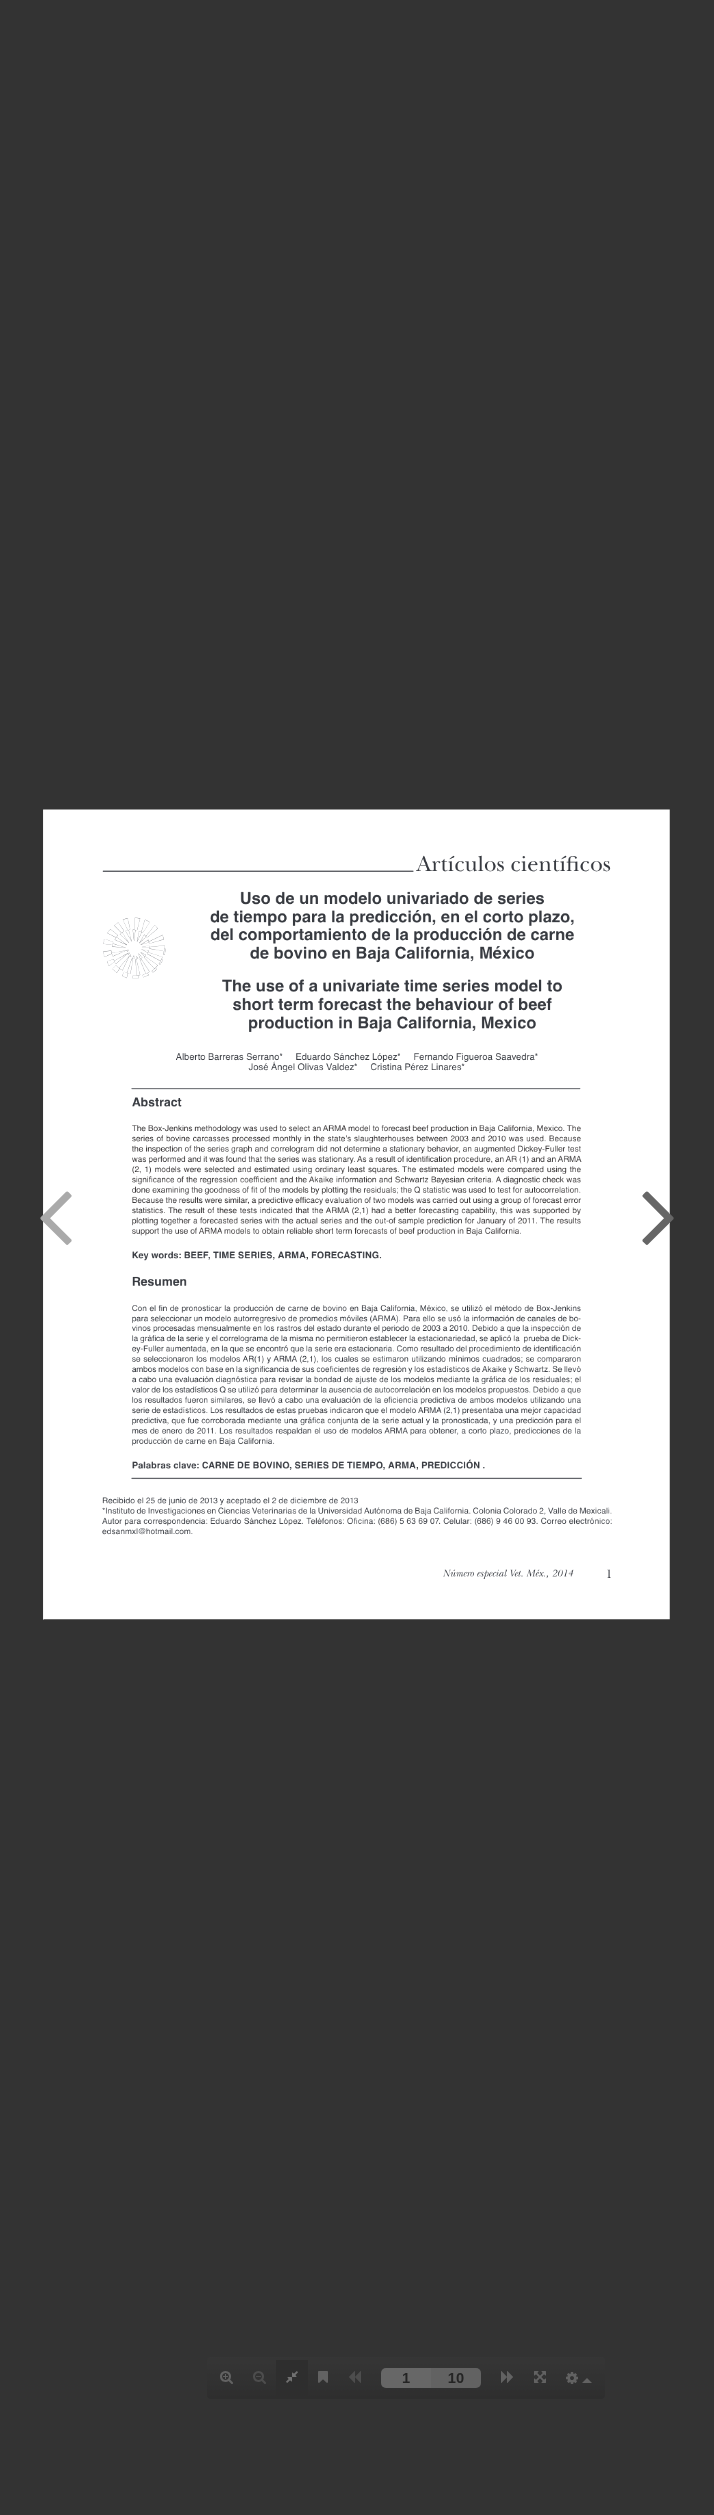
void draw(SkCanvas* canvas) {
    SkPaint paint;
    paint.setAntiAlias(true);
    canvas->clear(0xFF333333);
    canvas->drawImageRect(SkImages::DeferredFromEncodedData(SkData::MakeFromFileName("img1.png")), SkRect::MakeXYWH(40, 809, 634, 1590), SkSamplingOptions());
}
